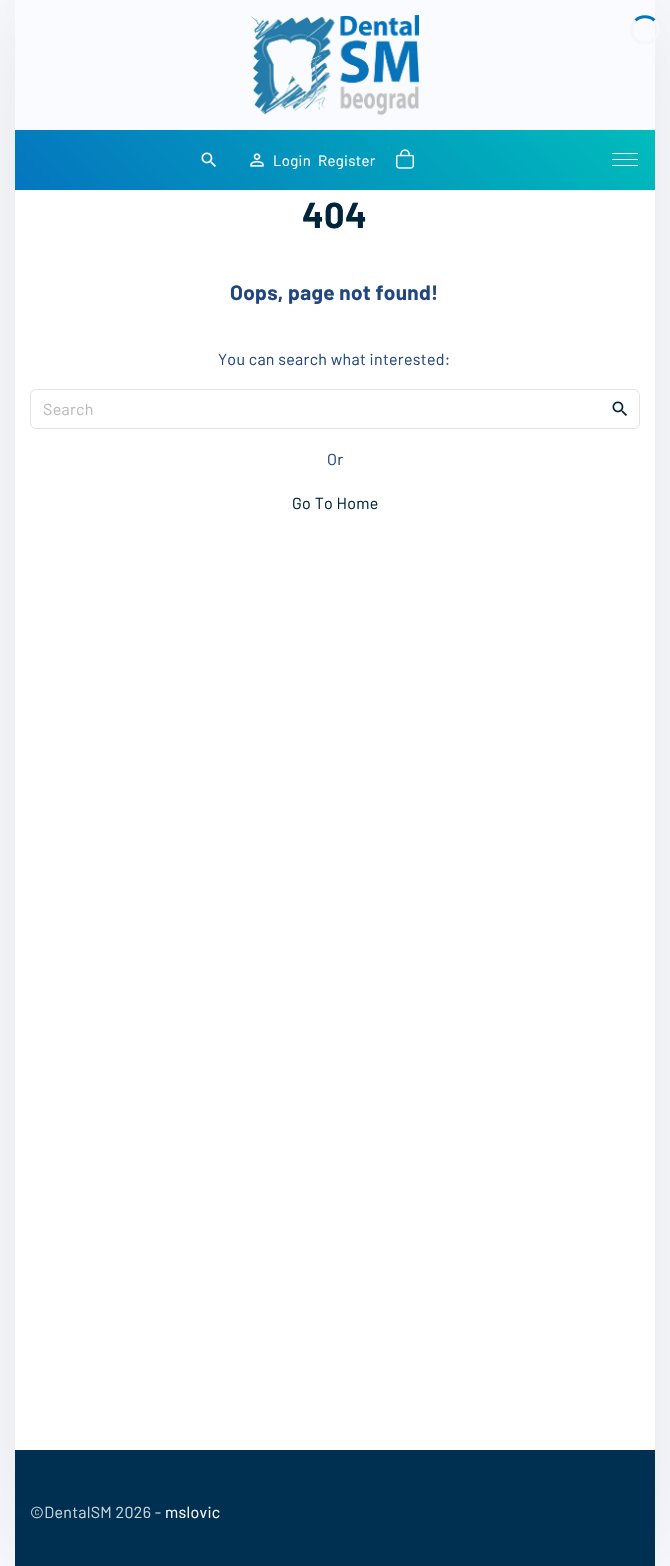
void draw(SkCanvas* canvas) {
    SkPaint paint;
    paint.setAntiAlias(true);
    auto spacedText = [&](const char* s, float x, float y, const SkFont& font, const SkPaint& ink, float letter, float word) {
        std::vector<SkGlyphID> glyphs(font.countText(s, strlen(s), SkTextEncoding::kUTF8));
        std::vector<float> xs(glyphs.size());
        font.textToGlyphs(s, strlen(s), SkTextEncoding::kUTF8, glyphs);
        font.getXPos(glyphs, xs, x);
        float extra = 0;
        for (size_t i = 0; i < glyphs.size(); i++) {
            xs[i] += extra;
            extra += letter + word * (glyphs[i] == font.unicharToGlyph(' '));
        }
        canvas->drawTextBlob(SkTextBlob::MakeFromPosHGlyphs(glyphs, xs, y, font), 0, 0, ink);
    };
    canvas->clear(0xFFF9FBFF);
    paint.setColor(0x26646464);
    paint.setMaskFilter(SkMaskFilter::MakeBlur(kNormal_SkBlurStyle, 50));
    canvas->drawRect(SkRect::MakeXYWH(15, 0, 640, 1566), paint);
    paint.setMaskFilter(nullptr);
    paint.setColor(0xFFF9FBFF);
    canvas->drawRect(SkRect::MakeXYWH(15, 0, 640, 130), paint);
    paint.setStyle(SkPaint::kStroke_Style);
    paint.setStrokeWidth(3);
    paint.setColor(0xFF0575BF);
    canvas->drawPath(SkPathBuilder().moveTo(635.5f, 20.5f).cubicTo(640.5f, 15.5f, 649.5f, 15.5f, 654.5f, 20.5f).detach(), paint);
    paint.setColor(0xFFF7F7F7);
    canvas->drawPath(SkPathBuilder().moveTo(654.5f, 20.5f).cubicTo(657.5f, 23.5f, 659, 28.5f, 658, 32.5f).cubicTo(655, 48.5f, 631.5f, 46, 631.5f, 30).cubicTo(631.5f, 26.5f, 633, 23, 635.5f, 20.5f).detach(), paint);
    paint.setStyle(SkPaint::kFill_Style);
    paint.setColor(0xFFFFFFFF);
    canvas->drawRect(SkRect::MakeXYWH(15, 190, 640, 1260), paint);
    canvas->drawImageRect(SkImages::DeferredFromEncodedData(SkData::MakeFromFileName("img1.png")), SkRect::MakeXYWH(251, 15, 168, 100), SkSamplingOptions());
    {
        const SkColor colors[] = {0xFF0575BF, 0xFF00BCBC};
        const float stops[] = {0, 1};
        const SkPoint ends[] = {{160, 335}, {510, -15}};
        paint.setShader(SkGradientShader::MakeLinear(ends, colors, stops, 2, SkTileMode::kClamp));
        paint.setAlpha(255);
    }
    canvas->drawRect(SkRect::MakeXYWH(15, 130, 640, 60), paint);
    canvas->drawImageRect(SkImages::DeferredFromEncodedData(SkData::MakeFromFileName("img2.png")), SkRect::MakeXYWH(201, 152, 15, 15), SkSamplingOptions());
    canvas->drawImageRect(SkImages::DeferredFromEncodedData(SkData::MakeFromFileName("img3.png")), SkRect::MakeXYWH(250, 153, 14, 14), SkSamplingOptions());
    SkFont font1(fontMgr->matchFamilyStyle("Barlow", SkFontStyle::Normal()), 15);
    font1.setSubpixel(true);
    paint.setShader(nullptr);
    paint.setColor(0xFFFFFFFF);
    spacedText("Login", 273, 166, font1, paint, 0.3f, 0);
    spacedText("Register", 318, 166, font1, paint, 0.3f, 0);
    canvas->drawImageRect(SkImages::DeferredFromEncodedData(SkData::MakeFromFileName("img4.png")), SkRect::MakeXYWH(396, 149, 18, 20), SkSamplingOptions());
    canvas->drawRect(SkRect::MakeXYWH(612, 159, 26, 1), paint);
    canvas->drawRect(SkRect::MakeXYWH(612, 153, 26, 1), paint);
    canvas->drawRect(SkRect::MakeXYWH(612, 165, 26, 1), paint);
    SkFont font2(fontMgr->matchFamilyStyle("Barlow", SkFontStyle::Bold()), 36);
    font2.setSubpixel(true);
    paint.setColor(0xFF00253A);
    spacedText("404", 302, 228, font2, paint, 0.3f, 0);
    SkFont font3(fontMgr->matchFamilyStyle("Barlow", SkFontStyle::Bold()), 20.75f);
    font3.setSubpixel(true);
    paint.setColor(0xFF21467F);
    spacedText("Oops, page not found!", 230, 300, font3, paint, 0.3f, 0);
    SkFont font4(fontMgr->matchFamilyStyle("Barlow", SkFontStyle::Normal()), 16);
    font4.setSubpixel(true);
    spacedText("You can search what interested:", 218, 365, font4, paint, 0.3f, 0);
    paint.setStyle(SkPaint::kStroke_Style);
    paint.setStrokeWidth(1);
    paint.setColor(0xFFE3E4E8);
    canvas->drawRoundRect(SkRect::MakeXYWH(30.5f, 389.5f, 609, 39), 5.5f, 5.5f, paint);
    paint.setStyle(SkPaint::kFill_Style);
    paint.setColor(0xFFBABABA);
    spacedText("Search", 43, 415, font4, paint, 0.3f, 0);
    canvas->drawImageRect(SkImages::DeferredFromEncodedData(SkData::MakeFromFileName("img5.png")), SkRect::MakeXYWH(612, 401, 15, 15), SkSamplingOptions());
    paint.setColor(0xFF21467F);
    spacedText("Or", 327, 465, font4, paint, 0.3f, 0);
    paint.setColor(0xFF00253A);
    spacedText("Go To Home", 292, 509, font4, paint, 0.3f, 0);
    paint.setColor(0xFF003051);
    canvas->drawRect(SkRect::MakeXYWH(15, 1450, 640, 116), paint);
    paint.setColor(0xFFCCD6DC);
    spacedText("©DentalSM 2026 -", 30, 1518, font4, paint, 0.3f, 0);
    paint.setColor(0xFFFFFFFF);
    spacedText("mslovic", 165, 1518, font4, paint, 0.3f, 0);
}
